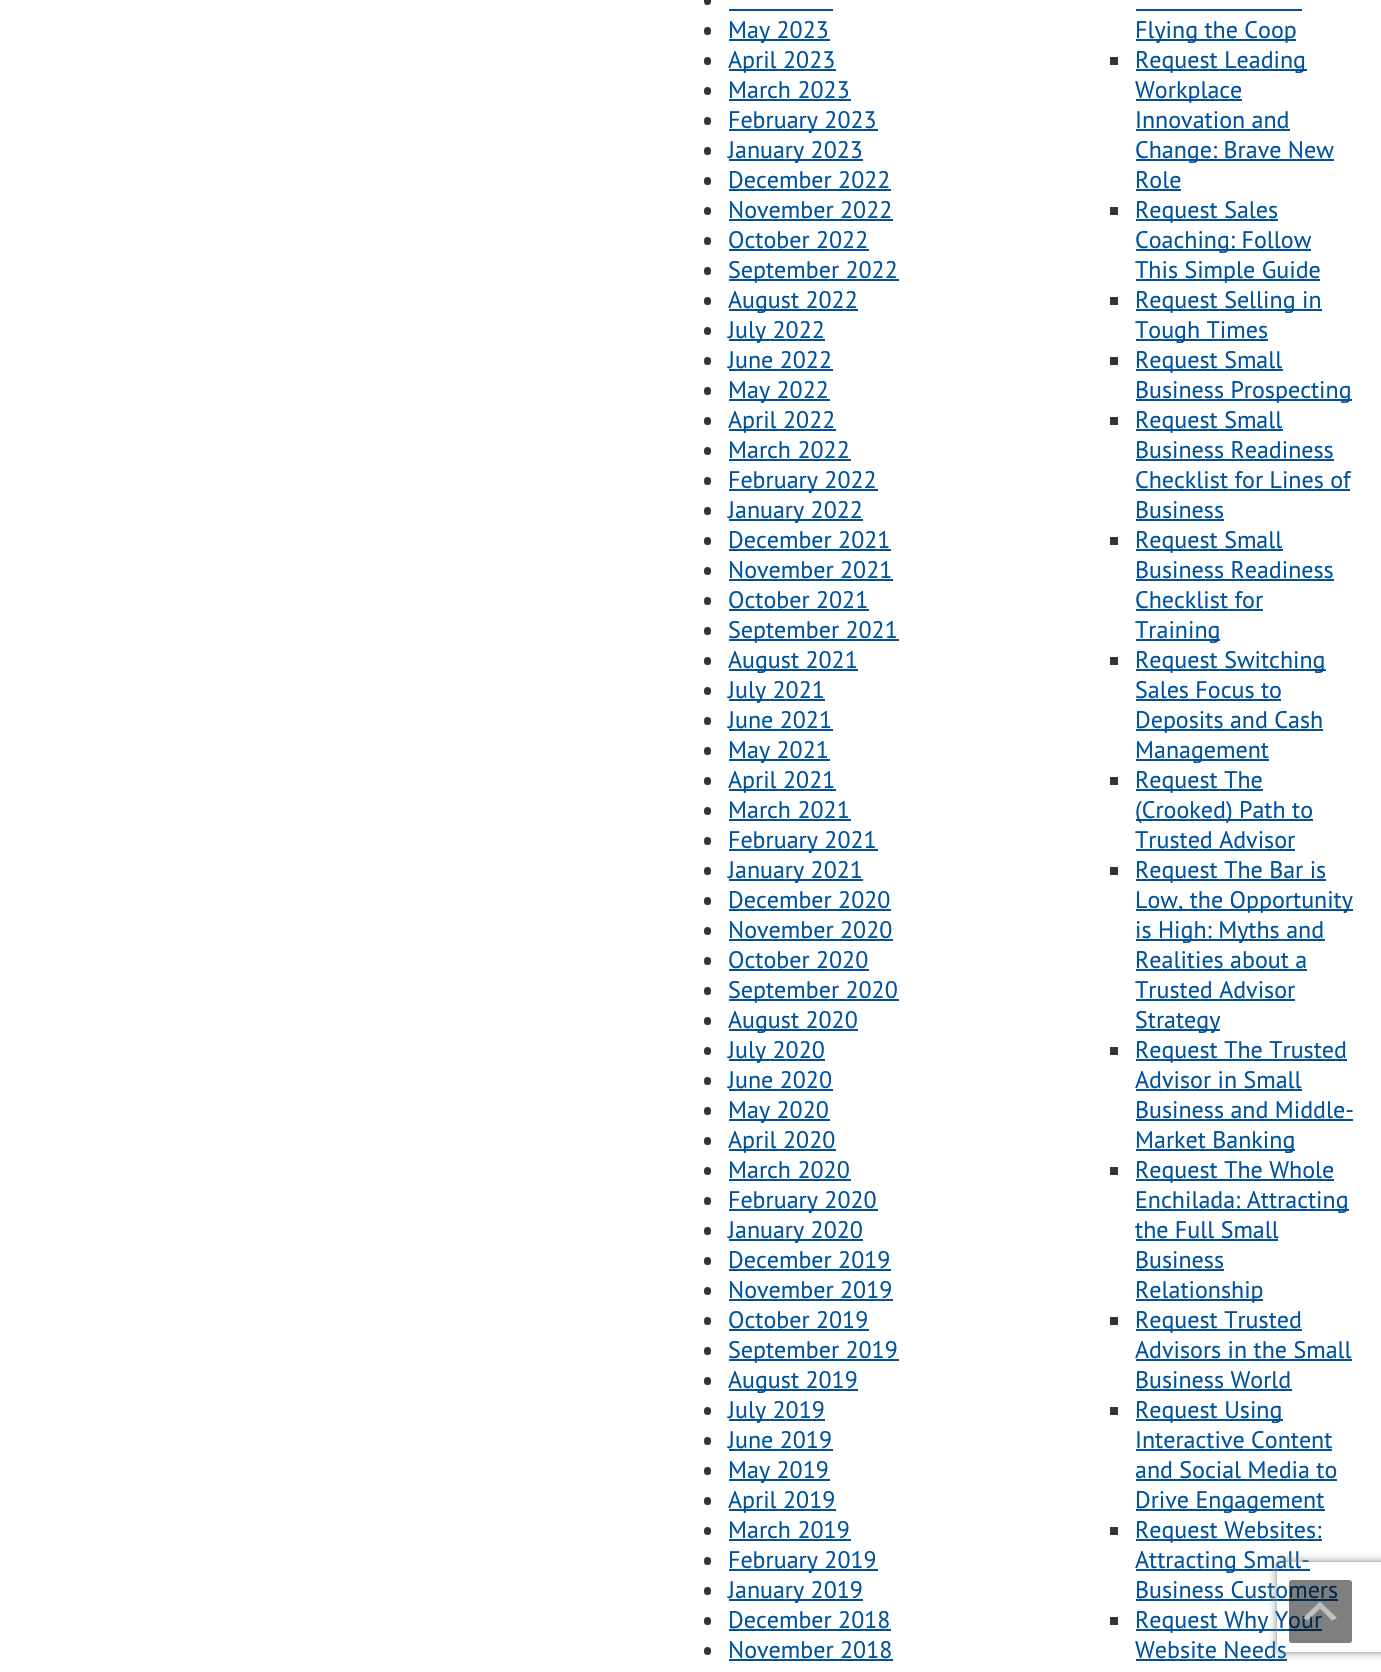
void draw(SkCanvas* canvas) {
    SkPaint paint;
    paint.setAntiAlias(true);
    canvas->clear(0xFFFFFFFF);
    paint.setColor(0xFF343333);
    canvas->drawRoundRect(SkRect::MakeXYWH(704, -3, 7, 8), 3.5f, 3.5f, paint);
    paint.setColor(0xFF00529C);
    canvas->drawRect(SkRect::MakeXYWH(729, 9, 104, 2), paint);
    paint.setColor(0xFF343333);
    canvas->drawRoundRect(SkRect::MakeXYWH(704, 27, 7, 8), 3.5f, 3.5f, paint);
    paint.setColor(0xFF00529C);
    canvas->drawRect(SkRect::MakeXYWH(729, 39, 101, 2), paint);
    SkFont font1(fontMgr->matchFamilyStyle("PT Sans", SkFontStyle::Normal()), 24);
    font1.setSubpixel(true);
    canvas->drawString("May 2023", 728, 38, font1, paint);
    paint.setColor(0xFF343333);
    canvas->drawRoundRect(SkRect::MakeXYWH(704, 57, 7, 8), 3.5f, 3.5f, paint);
    paint.setColor(0xFF00529C);
    canvas->drawRect(SkRect::MakeXYWH(729, 69, 107, 2), paint);
    canvas->drawString("April 2023", 728, 68, font1, paint);
    paint.setColor(0xFF343333);
    canvas->drawRoundRect(SkRect::MakeXYWH(704, 87, 7, 8), 3.5f, 3.5f, paint);
    paint.setColor(0xFF00529C);
    canvas->drawString("March 2023", 728, 98, font1, paint);
    canvas->drawRect(SkRect::MakeXYWH(729, 99, 122, 2), paint);
    paint.setColor(0xFF343333);
    canvas->drawRoundRect(SkRect::MakeXYWH(704, 117, 7, 8), 3.5f, 3.5f, paint);
    paint.setColor(0xFF00529C);
    canvas->drawRect(SkRect::MakeXYWH(729, 129, 149, 2), paint);
    canvas->drawString("February 2023", 728, 128, font1, paint);
    paint.setColor(0xFF343333);
    canvas->drawRoundRect(SkRect::MakeXYWH(704, 147, 7, 8), 3.5f, 3.5f, paint);
    paint.setColor(0xFF00529C);
    canvas->drawRect(SkRect::MakeXYWH(729, 159, 134, 2), paint);
    canvas->drawString("January 2023", 728, 158, font1, paint);
    paint.setColor(0xFF343333);
    canvas->drawRoundRect(SkRect::MakeXYWH(704, 177, 7, 8), 3.5f, 3.5f, paint);
    paint.setColor(0xFF00529C);
    canvas->drawString("December 2022", 728, 188, font1, paint);
    canvas->drawRect(SkRect::MakeXYWH(729, 189, 162, 2), paint);
    paint.setColor(0xFF343333);
    canvas->drawRoundRect(SkRect::MakeXYWH(704, 207, 7, 8), 3.5f, 3.5f, paint);
    paint.setColor(0xFF00529C);
    canvas->drawString("November 2022", 728, 218, font1, paint);
    canvas->drawRect(SkRect::MakeXYWH(729, 219, 164, 2), paint);
    paint.setColor(0xFF343333);
    canvas->drawRoundRect(SkRect::MakeXYWH(704, 237, 7, 8), 3.5f, 3.5f, paint);
    paint.setColor(0xFF00529C);
    canvas->drawString("October 2022", 728, 248, font1, paint);
    canvas->drawRect(SkRect::MakeXYWH(729, 249, 140, 2), paint);
    paint.setColor(0xFF343333);
    canvas->drawRoundRect(SkRect::MakeXYWH(704, 267, 7, 8), 3.5f, 3.5f, paint);
    paint.setColor(0xFF00529C);
    canvas->drawRect(SkRect::MakeXYWH(729, 279, 170, 2), paint);
    canvas->drawString("September 2022", 728, 278, font1, paint);
    paint.setColor(0xFF343333);
    canvas->drawRoundRect(SkRect::MakeXYWH(704, 297, 7, 8), 3.5f, 3.5f, paint);
    paint.setColor(0xFF00529C);
    canvas->drawRect(SkRect::MakeXYWH(729, 309, 129, 2), paint);
    canvas->drawString("August 2022", 728, 308, font1, paint);
    paint.setColor(0xFF343333);
    canvas->drawRoundRect(SkRect::MakeXYWH(704, 327, 7, 8), 3.5f, 3.5f, paint);
    paint.setColor(0xFF00529C);
    canvas->drawRect(SkRect::MakeXYWH(729, 339, 96, 2), paint);
    canvas->drawString("July 2022", 728, 338, font1, paint);
    paint.setColor(0xFF343333);
    canvas->drawRoundRect(SkRect::MakeXYWH(704, 357, 7, 8), 3.5f, 3.5f, paint);
    paint.setColor(0xFF00529C);
    canvas->drawString("June 2022", 728, 368, font1, paint);
    canvas->drawRect(SkRect::MakeXYWH(729, 369, 104, 2), paint);
    paint.setColor(0xFF343333);
    canvas->drawRoundRect(SkRect::MakeXYWH(704, 387, 7, 8), 3.5f, 3.5f, paint);
    paint.setColor(0xFF00529C);
    canvas->drawRect(SkRect::MakeXYWH(729, 399, 101, 2), paint);
    canvas->drawString("May 2022", 728, 398, font1, paint);
    paint.setColor(0xFF343333);
    canvas->drawRoundRect(SkRect::MakeXYWH(704, 417, 7, 8), 3.5f, 3.5f, paint);
    paint.setColor(0xFF00529C);
    canvas->drawRect(SkRect::MakeXYWH(729, 429, 107, 2), paint);
    canvas->drawString("April 2022", 728, 428, font1, paint);
    paint.setColor(0xFF343333);
    canvas->drawRoundRect(SkRect::MakeXYWH(704, 447, 7, 8), 3.5f, 3.5f, paint);
    paint.setColor(0xFF00529C);
    canvas->drawString("March 2022", 728, 458, font1, paint);
    canvas->drawRect(SkRect::MakeXYWH(729, 459, 122, 2), paint);
    paint.setColor(0xFF343333);
    canvas->drawRoundRect(SkRect::MakeXYWH(704, 477, 7, 8), 3.5f, 3.5f, paint);
    paint.setColor(0xFF00529C);
    canvas->drawRect(SkRect::MakeXYWH(729, 489, 149, 2), paint);
    canvas->drawString("February 2022", 728, 488, font1, paint);
    paint.setColor(0xFF343333);
    canvas->drawRoundRect(SkRect::MakeXYWH(704, 507, 7, 8), 3.5f, 3.5f, paint);
    paint.setColor(0xFF00529C);
    canvas->drawRect(SkRect::MakeXYWH(729, 519, 134, 2), paint);
    canvas->drawString("January 2022", 728, 518, font1, paint);
    paint.setColor(0xFF343333);
    canvas->drawRoundRect(SkRect::MakeXYWH(704, 537, 7, 8), 3.5f, 3.5f, paint);
    paint.setColor(0xFF00529C);
    canvas->drawString("December 2021", 728, 548, font1, paint);
    canvas->drawRect(SkRect::MakeXYWH(729, 549, 162, 2), paint);
    paint.setColor(0xFF343333);
    canvas->drawRoundRect(SkRect::MakeXYWH(704, 567, 7, 8), 3.5f, 3.5f, paint);
    paint.setColor(0xFF00529C);
    canvas->drawString("November 2021", 728, 578, font1, paint);
    canvas->drawRect(SkRect::MakeXYWH(729, 579, 164, 2), paint);
    paint.setColor(0xFF343333);
    canvas->drawRoundRect(SkRect::MakeXYWH(704, 597, 7, 8), 3.5f, 3.5f, paint);
    paint.setColor(0xFF00529C);
    canvas->drawString("October 2021", 728, 608, font1, paint);
    canvas->drawRect(SkRect::MakeXYWH(729, 609, 140, 2), paint);
    paint.setColor(0xFF343333);
    canvas->drawRoundRect(SkRect::MakeXYWH(704, 627, 7, 8), 3.5f, 3.5f, paint);
    paint.setColor(0xFF00529C);
    canvas->drawRect(SkRect::MakeXYWH(729, 639, 170, 2), paint);
    canvas->drawString("September 2021", 728, 638, font1, paint);
    paint.setColor(0xFF343333);
    canvas->drawRoundRect(SkRect::MakeXYWH(704, 657, 7, 8), 3.5f, 3.5f, paint);
    paint.setColor(0xFF00529C);
    canvas->drawRect(SkRect::MakeXYWH(729, 669, 129, 2), paint);
    canvas->drawString("August 2021", 728, 668, font1, paint);
    paint.setColor(0xFF343333);
    canvas->drawRoundRect(SkRect::MakeXYWH(704, 687, 7, 8), 3.5f, 3.5f, paint);
    paint.setColor(0xFF00529C);
    canvas->drawRect(SkRect::MakeXYWH(729, 699, 96, 2), paint);
    canvas->drawString("July 2021", 728, 698, font1, paint);
    paint.setColor(0xFF343333);
    canvas->drawRoundRect(SkRect::MakeXYWH(704, 717, 7, 8), 3.5f, 3.5f, paint);
    paint.setColor(0xFF00529C);
    canvas->drawString("June 2021", 728, 728, font1, paint);
    canvas->drawRect(SkRect::MakeXYWH(729, 729, 104, 2), paint);
    paint.setColor(0xFF343333);
    canvas->drawRoundRect(SkRect::MakeXYWH(704, 747, 7, 8), 3.5f, 3.5f, paint);
    paint.setColor(0xFF00529C);
    canvas->drawRect(SkRect::MakeXYWH(729, 759, 101, 2), paint);
    canvas->drawString("May 2021", 728, 758, font1, paint);
    paint.setColor(0xFF343333);
    canvas->drawRoundRect(SkRect::MakeXYWH(704, 777, 7, 8), 3.5f, 3.5f, paint);
    paint.setColor(0xFF00529C);
    canvas->drawRect(SkRect::MakeXYWH(729, 789, 107, 2), paint);
    canvas->drawString("April 2021", 728, 788, font1, paint);
    paint.setColor(0xFF343333);
    canvas->drawRoundRect(SkRect::MakeXYWH(704, 807, 7, 8), 3.5f, 3.5f, paint);
    paint.setColor(0xFF00529C);
    canvas->drawString("March 2021", 728, 818, font1, paint);
    canvas->drawRect(SkRect::MakeXYWH(729, 819, 122, 2), paint);
    paint.setColor(0xFF343333);
    canvas->drawRoundRect(SkRect::MakeXYWH(704, 837, 7, 8), 3.5f, 3.5f, paint);
    paint.setColor(0xFF00529C);
    canvas->drawRect(SkRect::MakeXYWH(729, 849, 149, 2), paint);
    canvas->drawString("February 2021", 728, 848, font1, paint);
    paint.setColor(0xFF343333);
    canvas->drawRoundRect(SkRect::MakeXYWH(704, 867, 7, 8), 3.5f, 3.5f, paint);
    paint.setColor(0xFF00529C);
    canvas->drawRect(SkRect::MakeXYWH(729, 879, 134, 2), paint);
    canvas->drawString("January 2021", 728, 878, font1, paint);
    paint.setColor(0xFF343333);
    canvas->drawRoundRect(SkRect::MakeXYWH(704, 897, 7, 8), 3.5f, 3.5f, paint);
    paint.setColor(0xFF00529C);
    canvas->drawString("December 2020", 728, 908, font1, paint);
    canvas->drawRect(SkRect::MakeXYWH(729, 909, 162, 2), paint);
    paint.setColor(0xFF343333);
    canvas->drawRoundRect(SkRect::MakeXYWH(704, 927, 7, 8), 3.5f, 3.5f, paint);
    paint.setColor(0xFF00529C);
    canvas->drawString("November 2020", 728, 938, font1, paint);
    canvas->drawRect(SkRect::MakeXYWH(729, 939, 164, 2), paint);
    paint.setColor(0xFF343333);
    canvas->drawRoundRect(SkRect::MakeXYWH(704, 957, 7, 8), 3.5f, 3.5f, paint);
    paint.setColor(0xFF00529C);
    canvas->drawString("October 2020", 728, 968, font1, paint);
    canvas->drawRect(SkRect::MakeXYWH(729, 969, 140, 2), paint);
    paint.setColor(0xFF343333);
    canvas->drawRoundRect(SkRect::MakeXYWH(704, 987, 7, 8), 3.5f, 3.5f, paint);
    paint.setColor(0xFF00529C);
    canvas->drawRect(SkRect::MakeXYWH(729, 999, 170, 2), paint);
    canvas->drawString("September 2020", 728, 998, font1, paint);
    paint.setColor(0xFF343333);
    canvas->drawRoundRect(SkRect::MakeXYWH(704, 1017, 7, 8), 3.5f, 3.5f, paint);
    paint.setColor(0xFF00529C);
    canvas->drawRect(SkRect::MakeXYWH(729, 1029, 129, 2), paint);
    canvas->drawString("August 2020", 728, 1028, font1, paint);
    paint.setColor(0xFF343333);
    canvas->drawRoundRect(SkRect::MakeXYWH(704, 1047, 7, 8), 3.5f, 3.5f, paint);
    paint.setColor(0xFF00529C);
    canvas->drawRect(SkRect::MakeXYWH(729, 1059, 96, 2), paint);
    canvas->drawString("July 2020", 728, 1058, font1, paint);
    paint.setColor(0xFF343333);
    canvas->drawRoundRect(SkRect::MakeXYWH(704, 1077, 7, 8), 3.5f, 3.5f, paint);
    paint.setColor(0xFF00529C);
    canvas->drawString("June 2020", 728, 1088, font1, paint);
    canvas->drawRect(SkRect::MakeXYWH(729, 1089, 104, 2), paint);
    paint.setColor(0xFF343333);
    canvas->drawRoundRect(SkRect::MakeXYWH(704, 1107, 7, 8), 3.5f, 3.5f, paint);
    paint.setColor(0xFF00529C);
    canvas->drawRect(SkRect::MakeXYWH(729, 1119, 101, 2), paint);
    canvas->drawString("May 2020", 728, 1118, font1, paint);
    paint.setColor(0xFF343333);
    canvas->drawRoundRect(SkRect::MakeXYWH(704, 1137, 7, 8), 3.5f, 3.5f, paint);
    paint.setColor(0xFF00529C);
    canvas->drawRect(SkRect::MakeXYWH(729, 1149, 107, 2), paint);
    canvas->drawString("April 2020", 728, 1148, font1, paint);
    paint.setColor(0xFF343333);
    canvas->drawRoundRect(SkRect::MakeXYWH(704, 1167, 7, 8), 3.5f, 3.5f, paint);
    paint.setColor(0xFF00529C);
    canvas->drawString("March 2020", 728, 1178, font1, paint);
    canvas->drawRect(SkRect::MakeXYWH(729, 1179, 122, 2), paint);
    paint.setColor(0xFF343333);
    canvas->drawRoundRect(SkRect::MakeXYWH(704, 1197, 7, 8), 3.5f, 3.5f, paint);
    paint.setColor(0xFF00529C);
    canvas->drawRect(SkRect::MakeXYWH(729, 1209, 149, 2), paint);
    canvas->drawString("February 2020", 728, 1208, font1, paint);
    paint.setColor(0xFF343333);
    canvas->drawRoundRect(SkRect::MakeXYWH(704, 1227, 7, 8), 3.5f, 3.5f, paint);
    paint.setColor(0xFF00529C);
    canvas->drawRect(SkRect::MakeXYWH(729, 1239, 134, 2), paint);
    canvas->drawString("January 2020", 728, 1238, font1, paint);
    paint.setColor(0xFF343333);
    canvas->drawRoundRect(SkRect::MakeXYWH(704, 1257, 7, 8), 3.5f, 3.5f, paint);
    paint.setColor(0xFF00529C);
    canvas->drawString("December 2019", 728, 1268, font1, paint);
    canvas->drawRect(SkRect::MakeXYWH(729, 1269, 162, 2), paint);
    paint.setColor(0xFF343333);
    canvas->drawRoundRect(SkRect::MakeXYWH(704, 1287, 7, 8), 3.5f, 3.5f, paint);
    paint.setColor(0xFF00529C);
    canvas->drawString("November 2019", 728, 1298, font1, paint);
    canvas->drawRect(SkRect::MakeXYWH(729, 1299, 164, 2), paint);
    paint.setColor(0xFF343333);
    canvas->drawRoundRect(SkRect::MakeXYWH(704, 1317, 7, 8), 3.5f, 3.5f, paint);
    paint.setColor(0xFF00529C);
    canvas->drawString("October 2019", 728, 1328, font1, paint);
    canvas->drawRect(SkRect::MakeXYWH(729, 1329, 140, 2), paint);
    paint.setColor(0xFF343333);
    canvas->drawRoundRect(SkRect::MakeXYWH(704, 1347, 7, 8), 3.5f, 3.5f, paint);
    paint.setColor(0xFF00529C);
    canvas->drawRect(SkRect::MakeXYWH(729, 1359, 170, 2), paint);
    canvas->drawString("September 2019", 728, 1358, font1, paint);
    paint.setColor(0xFF343333);
    canvas->drawRoundRect(SkRect::MakeXYWH(704, 1377, 7, 8), 3.5f, 3.5f, paint);
    paint.setColor(0xFF00529C);
    canvas->drawRect(SkRect::MakeXYWH(729, 1389, 129, 2), paint);
    canvas->drawString("August 2019", 728, 1388, font1, paint);
    paint.setColor(0xFF343333);
    canvas->drawRoundRect(SkRect::MakeXYWH(704, 1407, 7, 8), 3.5f, 3.5f, paint);
    paint.setColor(0xFF00529C);
    canvas->drawRect(SkRect::MakeXYWH(729, 1419, 96, 2), paint);
    canvas->drawString("July 2019", 728, 1418, font1, paint);
    paint.setColor(0xFF343333);
    canvas->drawRoundRect(SkRect::MakeXYWH(704, 1437, 7, 8), 3.5f, 3.5f, paint);
    paint.setColor(0xFF00529C);
    canvas->drawString("June 2019", 728, 1448, font1, paint);
    canvas->drawRect(SkRect::MakeXYWH(729, 1449, 104, 2), paint);
    paint.setColor(0xFF343333);
    canvas->drawRoundRect(SkRect::MakeXYWH(704, 1467, 7, 8), 3.5f, 3.5f, paint);
    paint.setColor(0xFF00529C);
    canvas->drawRect(SkRect::MakeXYWH(729, 1479, 101, 2), paint);
    canvas->drawString("May 2019", 728, 1478, font1, paint);
    paint.setColor(0xFF343333);
    canvas->drawRoundRect(SkRect::MakeXYWH(704, 1497, 7, 8), 3.5f, 3.5f, paint);
    paint.setColor(0xFF00529C);
    canvas->drawRect(SkRect::MakeXYWH(729, 1509, 107, 2), paint);
    canvas->drawString("April 2019", 728, 1508, font1, paint);
    paint.setColor(0xFF343333);
    canvas->drawRoundRect(SkRect::MakeXYWH(704, 1527, 7, 8), 3.5f, 3.5f, paint);
    paint.setColor(0xFF00529C);
    canvas->drawString("March 2019", 728, 1538, font1, paint);
    canvas->drawRect(SkRect::MakeXYWH(729, 1539, 122, 2), paint);
    paint.setColor(0xFF343333);
    canvas->drawRoundRect(SkRect::MakeXYWH(704, 1557, 7, 8), 3.5f, 3.5f, paint);
    paint.setColor(0xFF00529C);
    canvas->drawRect(SkRect::MakeXYWH(729, 1569, 149, 2), paint);
    canvas->drawString("February 2019", 728, 1568, font1, paint);
    paint.setColor(0xFF343333);
    canvas->drawRoundRect(SkRect::MakeXYWH(704, 1587, 7, 8), 3.5f, 3.5f, paint);
    paint.setColor(0xFF00529C);
    canvas->drawRect(SkRect::MakeXYWH(729, 1599, 134, 2), paint);
    canvas->drawString("January 2019", 728, 1598, font1, paint);
    paint.setColor(0xFF343333);
    canvas->drawRoundRect(SkRect::MakeXYWH(704, 1617, 7, 8), 3.5f, 3.5f, paint);
    paint.setColor(0xFF00529C);
    canvas->drawString("December 2018", 728, 1628, font1, paint);
    canvas->drawRect(SkRect::MakeXYWH(729, 1629, 162, 2), paint);
    paint.setColor(0xFF343333);
    canvas->drawRoundRect(SkRect::MakeXYWH(704, 1647, 7, 8), 3.5f, 3.5f, paint);
    paint.setColor(0xFF00529C);
    canvas->drawString("November 2018", 728, 1658, font1, paint);
    canvas->drawRect(SkRect::MakeXYWH(729, 1659, 164, 2), paint);
    canvas->drawRect(SkRect::MakeXYWH(1136, 39, 160, 2), paint);
    canvas->drawString("Flying the Coop", 1135, 38, font1, paint);
    canvas->drawRect(SkRect::MakeXYWH(1136, 9, 166, 2), paint);
    paint.setColor(0xFF343333);
    canvas->drawRect(SkRect::MakeXYWH(1110, 57, 8, 8), paint);
    paint.setColor(0xFF00529C);
    canvas->drawRect(SkRect::MakeXYWH(1136, 69, 171, 2), paint);
    canvas->drawString("Request Leading", 1135, 68, font1, paint);
    canvas->drawRect(SkRect::MakeXYWH(1136, 99, 106, 2), paint);
    canvas->drawString("Workplace", 1135, 98, font1, paint);
    canvas->drawString("Innovation and", 1135, 128, font1, paint);
    canvas->drawRect(SkRect::MakeXYWH(1136, 129, 154, 2), paint);
    canvas->drawRect(SkRect::MakeXYWH(1136, 159, 198, 2), paint);
    canvas->drawString("Change: Brave New", 1135, 158, font1, paint);
    canvas->drawString("Role", 1135, 188, font1, paint);
    canvas->drawRect(SkRect::MakeXYWH(1136, 189, 45, 2), paint);
    paint.setColor(0xFF343333);
    canvas->drawRect(SkRect::MakeXYWH(1110, 207, 8, 8), paint);
    paint.setColor(0xFF00529C);
    canvas->drawRect(SkRect::MakeXYWH(1136, 219, 142, 2), paint);
    canvas->drawString("Request Sales", 1135, 218, font1, paint);
    canvas->drawRect(SkRect::MakeXYWH(1136, 249, 175, 2), paint);
    canvas->drawString("Coaching: Follow", 1135, 248, font1, paint);
    canvas->drawRect(SkRect::MakeXYWH(1136, 279, 184, 2), paint);
    canvas->drawString("This Simple Guide", 1135, 278, font1, paint);
    paint.setColor(0xFF343333);
    canvas->drawRect(SkRect::MakeXYWH(1110, 297, 8, 8), paint);
    paint.setColor(0xFF00529C);
    canvas->drawRect(SkRect::MakeXYWH(1136, 309, 186, 2), paint);
    canvas->drawString("Request Selling in", 1135, 308, font1, paint);
    canvas->drawRect(SkRect::MakeXYWH(1136, 339, 132, 2), paint);
    canvas->drawString("Tough Times", 1135, 338, font1, paint);
    paint.setColor(0xFF343333);
    canvas->drawRect(SkRect::MakeXYWH(1110, 357, 8, 8), paint);
    paint.setColor(0xFF00529C);
    canvas->drawRect(SkRect::MakeXYWH(1136, 369, 147, 2), paint);
    canvas->drawString("Request Small", 1135, 368, font1, paint);
    canvas->drawRect(SkRect::MakeXYWH(1136, 399, 216, 2), paint);
    canvas->drawString("Business Prospecting", 1135, 398, font1, paint);
    paint.setColor(0xFF343333);
    canvas->drawRect(SkRect::MakeXYWH(1110, 417, 8, 8), paint);
    paint.setColor(0xFF00529C);
    canvas->drawRect(SkRect::MakeXYWH(1136, 429, 147, 2), paint);
    canvas->drawString("Request Small", 1135, 428, font1, paint);
    canvas->drawString("Business Readiness", 1135, 458, font1, paint);
    canvas->drawRect(SkRect::MakeXYWH(1136, 459, 198, 2), paint);
    canvas->drawString("Checklist for Lines of", 1135, 488, font1, paint);
    canvas->drawRect(SkRect::MakeXYWH(1136, 489, 214, 2), paint);
    canvas->drawString("Business", 1135, 518, font1, paint);
    canvas->drawRect(SkRect::MakeXYWH(1136, 519, 88, 2), paint);
    paint.setColor(0xFF343333);
    canvas->drawRect(SkRect::MakeXYWH(1110, 537, 8, 8), paint);
    paint.setColor(0xFF00529C);
    canvas->drawRect(SkRect::MakeXYWH(1136, 549, 147, 2), paint);
    canvas->drawString("Request Small", 1135, 548, font1, paint);
    canvas->drawString("Business Readiness", 1135, 578, font1, paint);
    canvas->drawRect(SkRect::MakeXYWH(1136, 579, 198, 2), paint);
    canvas->drawString("Checklist for", 1135, 608, font1, paint);
    canvas->drawRect(SkRect::MakeXYWH(1136, 609, 127, 2), paint);
    canvas->drawRect(SkRect::MakeXYWH(1136, 639, 84, 2), paint);
    canvas->drawString("Training", 1135, 638, font1, paint);
    paint.setColor(0xFF343333);
    canvas->drawRect(SkRect::MakeXYWH(1110, 657, 8, 8), paint);
    paint.setColor(0xFF00529C);
    canvas->drawRect(SkRect::MakeXYWH(1136, 669, 190, 2), paint);
    canvas->drawString("Request Switching", 1135, 668, font1, paint);
    canvas->drawString("Sales Focus to", 1135, 698, font1, paint);
    canvas->drawRect(SkRect::MakeXYWH(1136, 699, 145, 2), paint);
    canvas->drawRect(SkRect::MakeXYWH(1136, 729, 187, 2), paint);
    canvas->drawString("Deposits and Cash", 1135, 728, font1, paint);
    canvas->drawRect(SkRect::MakeXYWH(1136, 759, 133, 2), paint);
    canvas->drawString("Management", 1135, 758, font1, paint);
    paint.setColor(0xFF343333);
    canvas->drawRect(SkRect::MakeXYWH(1110, 777, 8, 8), paint);
    paint.setColor(0xFF00529C);
    canvas->drawRect(SkRect::MakeXYWH(1136, 789, 127, 2), paint);
    canvas->drawString("Request The", 1135, 788, font1, paint);
    canvas->drawRect(SkRect::MakeXYWH(1136, 819, 177, 2), paint);
    canvas->drawString("(Crooked) Path to", 1135, 818, font1, paint);
    canvas->drawString("Trusted Advisor", 1135, 848, font1, paint);
    canvas->drawRect(SkRect::MakeXYWH(1136, 849, 159, 2), paint);
    paint.setColor(0xFF343333);
    canvas->drawRect(SkRect::MakeXYWH(1110, 867, 8, 8), paint);
    paint.setColor(0xFF00529C);
    canvas->drawRect(SkRect::MakeXYWH(1136, 879, 190, 2), paint);
    canvas->drawString("Request The Bar is", 1135, 878, font1, paint);
    canvas->drawRect(SkRect::MakeXYWH(1136, 909, 217, 2), paint);
    canvas->drawString("Low, the Opportunity", 1135, 908, font1, paint);
    canvas->drawRect(SkRect::MakeXYWH(1136, 939, 189, 2), paint);
    canvas->drawString("is High: Myths and", 1135, 938, font1, paint);
    canvas->drawString("Realities about a", 1135, 968, font1, paint);
    canvas->drawRect(SkRect::MakeXYWH(1136, 969, 171, 2), paint);
    canvas->drawString("Trusted Advisor", 1135, 998, font1, paint);
    canvas->drawRect(SkRect::MakeXYWH(1136, 999, 159, 2), paint);
    canvas->drawRect(SkRect::MakeXYWH(1136, 1029, 84, 2), paint);
    canvas->drawString("Strategy", 1135, 1028, font1, paint);
    paint.setColor(0xFF343333);
    canvas->drawRect(SkRect::MakeXYWH(1110, 1047, 8, 8), paint);
    paint.setColor(0xFF00529C);
    canvas->drawRect(SkRect::MakeXYWH(1136, 1059, 211, 2), paint);
    canvas->drawString("Request The Trusted", 1135, 1058, font1, paint);
    canvas->drawString("Advisor in Small", 1135, 1088, font1, paint);
    canvas->drawRect(SkRect::MakeXYWH(1136, 1089, 166, 2), paint);
    canvas->drawString("Business and Middle-", 1135, 1118, font1, paint);
    canvas->drawRect(SkRect::MakeXYWH(1136, 1119, 217, 2), paint);
    canvas->drawRect(SkRect::MakeXYWH(1136, 1149, 159, 2), paint);
    canvas->drawString("Market Banking", 1135, 1148, font1, paint);
    paint.setColor(0xFF343333);
    canvas->drawRect(SkRect::MakeXYWH(1110, 1167, 8, 8), paint);
    paint.setColor(0xFF00529C);
    canvas->drawRect(SkRect::MakeXYWH(1136, 1179, 198, 2), paint);
    canvas->drawString("Request The Whole", 1135, 1178, font1, paint);
    canvas->drawRect(SkRect::MakeXYWH(1136, 1209, 213, 2), paint);
    canvas->drawString("Enchilada: Attracting", 1135, 1208, font1, paint);
    canvas->drawString("the Full Small", 1135, 1238, font1, paint);
    canvas->drawRect(SkRect::MakeXYWH(1136, 1239, 142, 2), paint);
    canvas->drawString("Business", 1135, 1268, font1, paint);
    canvas->drawRect(SkRect::MakeXYWH(1136, 1269, 88, 2), paint);
    canvas->drawRect(SkRect::MakeXYWH(1136, 1299, 127, 2), paint);
    canvas->drawString("Relationship", 1135, 1298, font1, paint);
    paint.setColor(0xFF343333);
    canvas->drawRect(SkRect::MakeXYWH(1110, 1317, 8, 8), paint);
    paint.setColor(0xFF00529C);
    canvas->drawRect(SkRect::MakeXYWH(1136, 1329, 166, 2), paint);
    canvas->drawString("Request Trusted", 1135, 1328, font1, paint);
    canvas->drawString("Advisors in the Small", 1135, 1358, font1, paint);
    canvas->drawRect(SkRect::MakeXYWH(1136, 1359, 216, 2), paint);
    canvas->drawString("Business World", 1135, 1388, font1, paint);
    canvas->drawRect(SkRect::MakeXYWH(1136, 1389, 156, 2), paint);
    paint.setColor(0xFF343333);
    canvas->drawRect(SkRect::MakeXYWH(1110, 1407, 8, 8), paint);
    paint.setColor(0xFF00529C);
    canvas->drawRect(SkRect::MakeXYWH(1136, 1419, 147, 2), paint);
    canvas->drawString("Request Using", 1135, 1418, font1, paint);
    canvas->drawString("Interactive Content", 1135, 1448, font1, paint);
    canvas->drawRect(SkRect::MakeXYWH(1136, 1449, 196, 2), paint);
    canvas->drawString("and Social Media to", 1135, 1478, font1, paint);
    canvas->drawRect(SkRect::MakeXYWH(1136, 1479, 201, 2), paint);
    canvas->drawRect(SkRect::MakeXYWH(1136, 1509, 189, 2), paint);
    canvas->drawString("Drive Engagement", 1135, 1508, font1, paint);
    paint.setColor(0xFF343333);
    canvas->drawRect(SkRect::MakeXYWH(1110, 1527, 8, 8), paint);
    paint.setColor(0xFF00529C);
    canvas->drawRect(SkRect::MakeXYWH(1136, 1539, 186, 2), paint);
    canvas->drawString("Request Websites:", 1135, 1538, font1, paint);
    canvas->drawRect(SkRect::MakeXYWH(1136, 1569, 174, 2), paint);
    canvas->drawString("Attracting Small-", 1135, 1568, font1, paint);
    canvas->drawString("Business Customers", 1135, 1598, font1, paint);
    canvas->drawRect(SkRect::MakeXYWH(1136, 1599, 202, 2), paint);
    paint.setColor(0xFF343333);
    canvas->drawRect(SkRect::MakeXYWH(1110, 1617, 8, 8), paint);
    paint.setColor(0xFF00529C);
    canvas->drawRect(SkRect::MakeXYWH(1136, 1629, 186, 2), paint);
    canvas->drawString("Request Why Your", 1135, 1628, font1, paint);
    canvas->drawString("Website Needs", 1135, 1658, font1, paint);
    canvas->drawRect(SkRect::MakeXYWH(1136, 1659, 151, 2), paint);
    canvas->save();
    canvas->clipPath(SkPathBuilder(SkPathFillType::kEvenOdd).moveTo(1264, 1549).lineTo(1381, 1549).lineTo(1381, 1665).lineTo(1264, 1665).close().moveTo(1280, 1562).lineTo(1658, 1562).cubicTo(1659.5f, 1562, 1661, 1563.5f, 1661, 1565).lineTo(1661, 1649).cubicTo(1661, 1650.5f, 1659.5f, 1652, 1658, 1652).lineTo(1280, 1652).cubicTo(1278.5f, 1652, 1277, 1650.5f, 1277, 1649).lineTo(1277, 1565).cubicTo(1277, 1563.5f, 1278.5f, 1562, 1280, 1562).close().detach(), true);
    paint.setColor(0xFF808080);
    paint.setMaskFilter(SkMaskFilter::MakeBlur(kNormal_SkBlurStyle, 4));
    canvas->drawRoundRect(SkRect::MakeXYWH(1277, 1562, 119, 90), 3, 3, paint);
    paint.setMaskFilter(nullptr);
    canvas->restore();
    paint.setColor(0x80000000);
    canvas->drawRoundRect(SkRect::MakeXYWH(1289, 1580, 63, 63), 3, 3, paint);
    paint.setColor(0x80FFFFFF);
    canvas->drawPath(SkPathBuilder().moveTo(1332, 1620.5f).lineTo(1320, 1608.5f).lineTo(1308, 1620.5f).lineTo(1303, 1618).lineTo(1320, 1601.5f).lineTo(1337, 1618).close().detach(), paint);
}
